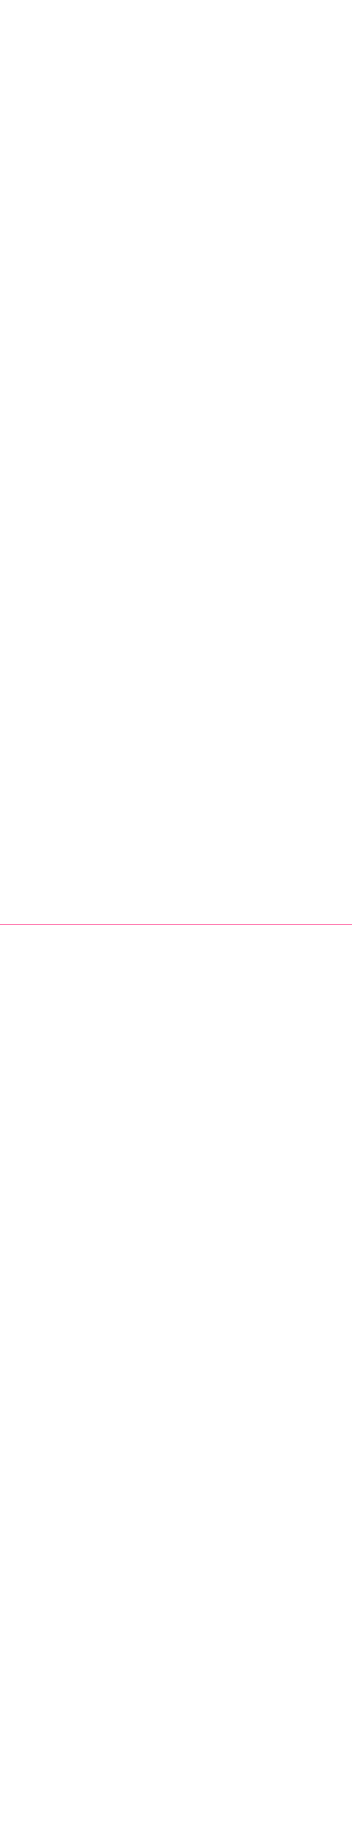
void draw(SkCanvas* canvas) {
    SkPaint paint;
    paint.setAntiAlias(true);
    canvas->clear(0xFFFFFFFF);
    paint.setColor(0xFFFF7DB1);
    canvas->drawRect(SkRect::MakeXYWH(0, 924, 352, 1), paint);
}
